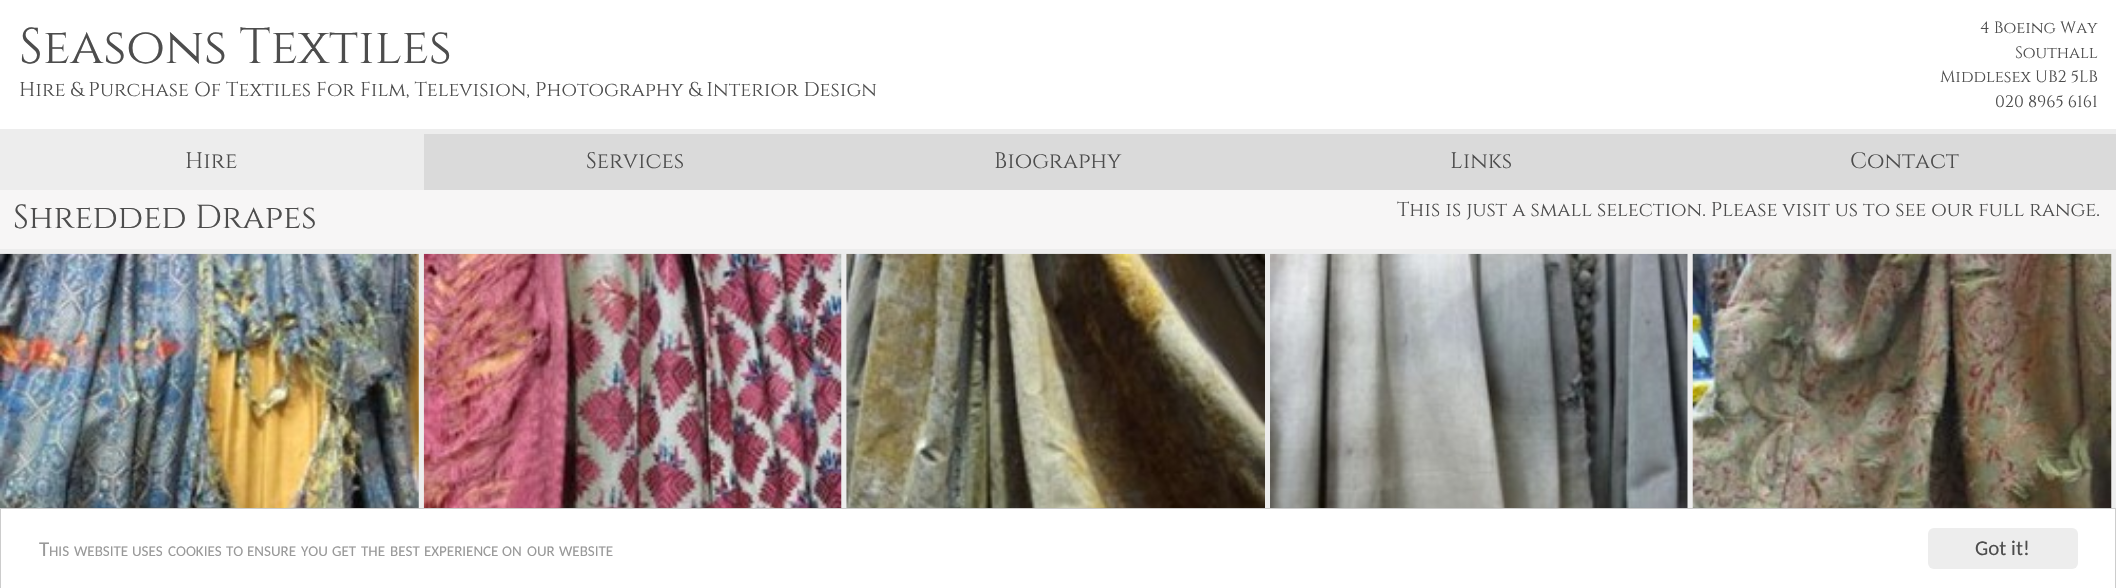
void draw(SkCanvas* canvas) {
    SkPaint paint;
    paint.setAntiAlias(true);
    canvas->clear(0xFFFFFFFF);
    SkFont font1(fontMgr->matchFamilyStyle("Cinzel", SkFontStyle::Normal()), 50);
    font1.setSubpixel(true);
    paint.setColor(0xFF4D4D4D);
    canvas->drawString("Seasons Textiles", 19, 63, font1, paint);
    SkFont font2(fontMgr->matchFamilyStyle("Cinzel", SkFontStyle::Normal()), 20);
    font2.setSubpixel(true);
    canvas->drawString("Hire & Purchase Of Textiles For Film, Television, Photography & Interior Design", 19, 96, font2, paint);
    SkFont font3(fontMgr->matchFamilyStyle("Cinzel", SkFontStyle::Normal()), 16.5f);
    font3.setSubpixel(true);
    canvas->drawString("4 Boeing Way", 1980, 33, font3, paint);
    canvas->drawString("Southall", 2015, 58, font3, paint);
    canvas->drawString("Middlesex UB2 5LB", 1940, 82, font3, paint);
    canvas->drawString("020 8965 6161", 1995, 107, font3, paint);
    paint.setColor(0xFFEDEDED);
    canvas->drawRect(SkRect::MakeXYWH(0, 129, 2116, 5), paint);
    paint.setColor(0xFFDADADA);
    canvas->drawRect(SkRect::MakeXYWH(424, 134, 1692, 56), paint);
    paint.setColor(0xFFEDEDED);
    canvas->drawRect(SkRect::MakeXYWH(0, 134, 424, 56), paint);
    SkFont font4(fontMgr->matchFamilyStyle("Cinzel", SkFontStyle::Normal()), 22.5f);
    font4.setSubpixel(true);
    paint.setColor(0xFF4D4D4D);
    canvas->drawString("Hire", 185, 168, font4, paint);
    canvas->drawString("Services", 586, 168, font4, paint);
    canvas->drawString("Biography", 994, 168, font4, paint);
    canvas->drawString("Links", 1450, 168, font4, paint);
    canvas->drawString("Contact", 1850, 168, font4, paint);
    paint.setColor(0xFFEDEDED);
    canvas->drawRect(SkRect::MakeXYWH(0, 249, 2116, 259), paint);
    paint.setColor(0xFFF7F6F6);
    canvas->drawRect(SkRect::MakeXYWH(0, 190, 2116, 59), paint);
    SkFont font5(fontMgr->matchFamilyStyle("Cinzel", SkFontStyle::Normal()), 33.25f);
    font5.setSubpixel(true);
    paint.setColor(0xFF4D4D4D);
    canvas->drawString("Shredded Drapes", 13, 228, font5, paint);
    canvas->drawString("This is just a small selection. Please visit us to see our full range.", 1397, 216, font2, paint);
    canvas->drawImageRect(SkImages::DeferredFromEncodedData(SkData::MakeFromFileName("img1.png")), SkRect::MakeXYWH(0, 253, 419, 255), SkSamplingOptions());
    canvas->drawImageRect(SkImages::DeferredFromEncodedData(SkData::MakeFromFileName("img2.png")), SkRect::MakeXYWH(423, 253, 419, 255), SkSamplingOptions());
    canvas->drawImageRect(SkImages::DeferredFromEncodedData(SkData::MakeFromFileName("img3.png")), SkRect::MakeXYWH(846, 253, 419, 255), SkSamplingOptions());
    canvas->drawImageRect(SkImages::DeferredFromEncodedData(SkData::MakeFromFileName("img4.png")), SkRect::MakeXYWH(1270, 253, 418, 255), SkSamplingOptions());
    canvas->drawImageRect(SkImages::DeferredFromEncodedData(SkData::MakeFromFileName("img5.png")), SkRect::MakeXYWH(1692, 253, 420, 255), SkSamplingOptions());
    paint.setStyle(SkPaint::kStroke_Style);
    paint.setStrokeWidth(1);
    paint.setColor(0xFFCCCCCC);
    canvas->drawRect(SkRect::MakeXYWH(0.5f, 508.5f, 2115, 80), paint);
    SkFont font6(fontMgr->matchFamilyStyle("Carlito", SkFontStyle::Normal()), 21);
    font6.setSubpixel(true);
    paint.setStyle(SkPaint::kFill_Style);
    paint.setColor(0xFF999999);
    canvas->drawString("T", 39, 556, font6, paint);
    SkFont font7(fontMgr->matchFamilyStyle("Carlito", SkFontStyle::Normal()), 15);
    font7.setSubpixel(true);
    canvas->drawString("HIS", 49, 556, font7, paint);
    canvas->drawString("WEBSITE", 74, 556, font7, paint);
    canvas->drawString("USES", 132, 556, font7, paint);
    canvas->drawString("COOKIES", 168, 556, font7, paint);
    canvas->drawString("TO", 226, 556, font7, paint);
    canvas->drawString("ENSURE", 247, 556, font7, paint);
    canvas->drawString("YOU", 301, 556, font7, paint);
    canvas->drawString("GET", 332, 556, font7, paint);
    canvas->drawString("THE", 361, 556, font7, paint);
    canvas->drawString("BEST", 390, 556, font7, paint);
    canvas->drawString("EXPERIENCE", 424, 556, font7, paint);
    canvas->drawString("ON", 502, 556, font7, paint);
    canvas->drawString("OUR", 527, 556, font7, paint);
    canvas->drawString("WEBSITE", 559, 556, font7, paint);
    paint.setColor(0xFFEDEDED);
    canvas->drawRoundRect(SkRect::MakeXYWH(1928, 528, 150, 41), 6, 6, paint);
    paint.setColor(0xFF4D4D4D);
    canvas->drawString("Got it!", 1975, 555, font6, paint);
}
